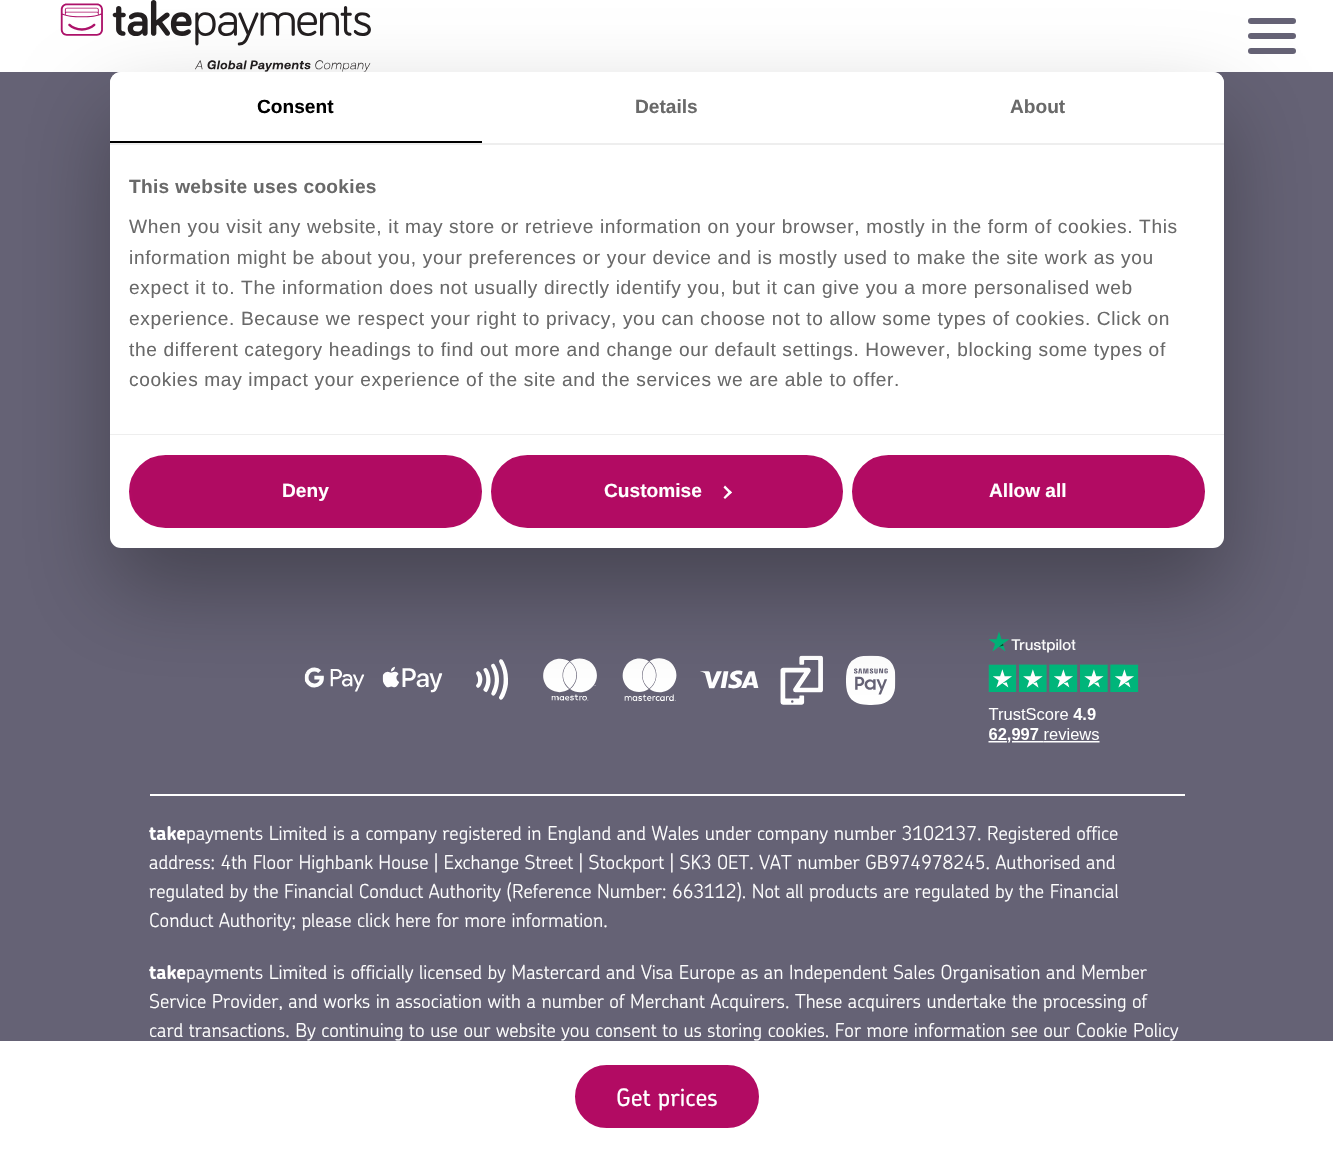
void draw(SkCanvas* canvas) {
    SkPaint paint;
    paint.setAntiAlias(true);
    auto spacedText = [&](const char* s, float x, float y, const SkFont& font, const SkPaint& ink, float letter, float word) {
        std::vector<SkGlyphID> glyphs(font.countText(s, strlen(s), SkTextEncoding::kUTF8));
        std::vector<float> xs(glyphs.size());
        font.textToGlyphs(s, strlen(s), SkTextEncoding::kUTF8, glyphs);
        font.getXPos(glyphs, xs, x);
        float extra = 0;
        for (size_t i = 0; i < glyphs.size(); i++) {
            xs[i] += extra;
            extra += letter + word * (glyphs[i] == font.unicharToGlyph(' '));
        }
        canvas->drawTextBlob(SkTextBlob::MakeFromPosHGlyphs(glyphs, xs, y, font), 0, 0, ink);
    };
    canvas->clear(0xFF656275);
    paint.setColor(0xFFFFFFFF);
    canvas->drawRect(SkRect::MakeXYWH(0, 0, 1333, 72), paint);
    canvas->drawImageRect(SkImages::DeferredFromEncodedData(SkData::MakeFromFileName("img1.png")), SkRect::MakeXYWH(60, 0, 311, 72), SkSamplingOptions());
    paint.setColor(0xFF656275);
    canvas->drawRoundRect(SkRect::MakeXYWH(1248, 33, 48, 6), 3, 3, paint);
    canvas->drawRoundRect(SkRect::MakeXYWH(1248, 18, 48, 6), 3, 3, paint);
    canvas->drawRoundRect(SkRect::MakeXYWH(1248, 48, 48, 6), 3, 3, paint);
    canvas->drawImageRect(SkImages::DeferredFromEncodedData(SkData::MakeFromFileName("img2.png")), SkRect::MakeXYWH(304, 667, 61, 25), SkSamplingOptions());
    canvas->drawImageRect(SkImages::DeferredFromEncodedData(SkData::MakeFromFileName("img3.png")), SkRect::MakeXYWH(382, 666, 61, 27), SkSamplingOptions());
    canvas->drawImageRect(SkImages::DeferredFromEncodedData(SkData::MakeFromFileName("img4.png")), SkRect::MakeXYWH(476, 659, 32, 41), SkSamplingOptions());
    canvas->drawImageRect(SkImages::DeferredFromEncodedData(SkData::MakeFromFileName("img5.png")), SkRect::MakeXYWH(543, 658, 54, 43), SkSamplingOptions());
    canvas->drawImageRect(SkImages::DeferredFromEncodedData(SkData::MakeFromFileName("img6.png")), SkRect::MakeXYWH(622, 658, 55, 43), SkSamplingOptions());
    canvas->drawImageRect(SkImages::DeferredFromEncodedData(SkData::MakeFromFileName("img7.png")), SkRect::MakeXYWH(700, 670, 59, 19), SkSamplingOptions());
    canvas->drawImageRect(SkImages::DeferredFromEncodedData(SkData::MakeFromFileName("img8.png")), SkRect::MakeXYWH(780, 655, 43, 50), SkSamplingOptions());
    canvas->drawImageRect(SkImages::DeferredFromEncodedData(SkData::MakeFromFileName("img9.png")), SkRect::MakeXYWH(846, 655, 50, 50), SkSamplingOptions());
    canvas->drawImageRect(SkImages::DeferredFromEncodedData(SkData::MakeFromFileName("img10.png")), SkRect::MakeXYWH(988, 632, 151, 111), SkSamplingOptions());
    paint.setColor(0x4D000000);
    paint.setMaskFilter(SkMaskFilter::MakeBlur(kNormal_SkBlurStyle, 43.5f));
    canvas->drawRoundRect(SkRect::MakeXYWH(110, 113, 1114, 477), 11, 11, paint);
    paint.setMaskFilter(nullptr);
    paint.setColor(0xFFFFFFFF);
    canvas->drawRoundRect(SkRect::MakeXYWH(110, 72, 1114, 476), 11, 11, paint);
    canvas->drawPath(SkPathBuilder().moveTo(121, 72).lineTo(1213, 72).cubicTo(1219, 72, 1224, 77, 1224, 83).lineTo(1224, 144).lineTo(110, 144).lineTo(110, 83).cubicTo(110, 77, 115, 72, 121, 72).close().detach(), paint);
    paint.setColor(0xFFEEEEEE);
    canvas->drawRect(SkRect::MakeXYWH(110, 143, 1114, 2), paint);
    paint.setColor(0xFF000000);
    canvas->drawRect(SkRect::MakeXYWH(110, 141, 372, 2), paint);
    SkFont font1(fontMgr->matchFamilyStyle("Liberation Sans", SkFontStyle::Bold()), 19.13f);
    font1.setSubpixel(true);
    canvas->drawString("Consent", 257, 113, font1, paint);
    paint.setColor(0xFF696969);
    canvas->drawString("Details", 635, 113, font1, paint);
    canvas->drawString("About", 1010, 113, font1, paint);
    paint.setColor(0xFFEEEEEE);
    canvas->drawRect(SkRect::MakeXYWH(110, 434, 1114, 1), paint);
    paint.setColor(0xFF696969);
    spacedText("This website uses cookies", 129, 193, font1, paint, 0.3f, 0);
    SkFont font2(fontMgr->matchFamilyStyle("Liberation Sans", SkFontStyle::Normal()), 19.13f);
    font2.setSubpixel(true);
    spacedText("When you visit any website, it may store or retrieve information on your browser, mostly in the form of cookies. This", 129, 233, font2, paint, 0.64f, 0);
    spacedText("information might be about you, your preferences or your device and is mostly used to make the site work as you", 129, 264, font2, paint, 0.64f, 0);
    spacedText("expect it to. The information does not usually directly identify you, but it can give you a more personalised web", 129, 294, font2, paint, 0.64f, 0);
    spacedText("experience. Because we respect your right to privacy, you can choose not to allow some types of cookies. Click on", 129, 325, font2, paint, 0.64f, 0);
    spacedText("the different category headings to find out more and change our default settings. However, blocking some types of", 129, 356, font2, paint, 0.64f, 0);
    spacedText("cookies may impact your experience of the site and the services we are able to offer.", 129, 386, font2, paint, 0.64f, 0);
    paint.setColor(0xFFB00B62);
    canvas->drawRoundRect(SkRect::MakeXYWH(130.5f, 456.5f, 350, 70), 35, 35, paint);
    paint.setStyle(SkPaint::kStroke_Style);
    paint.setStrokeWidth(3);
    paint.setColor(0xFFB20B63);
    canvas->drawRoundRect(SkRect::MakeXYWH(130.5f, 456.5f, 350, 70), 35, 35, paint);
    paint.setStyle(SkPaint::kFill_Style);
    paint.setColor(0xFFFFFFFF);
    canvas->drawString("Deny", 282, 497, font1, paint);
    paint.setColor(0xFFB20B63);
    canvas->drawRoundRect(SkRect::MakeXYWH(492.5f, 456.5f, 349, 70), 35, 35, paint);
    paint.setStyle(SkPaint::kStroke_Style);
    canvas->drawRoundRect(SkRect::MakeXYWH(492.5f, 456.5f, 349, 70), 35, 35, paint);
    paint.setStyle(SkPaint::kFill_Style);
    paint.setColor(0xFFFFFFFF);
    canvas->drawString("Customise", 604, 497, font1, paint);
    canvas->drawPath(SkPathBuilder().moveTo(725, 485.5f).lineTo(732, 492.5f).lineTo(730, 494).lineTo(723.5f, 487.5f).close().detach(), paint);
    canvas->drawPath(SkPathBuilder().moveTo(730, 490.5f).lineTo(732, 492.5f).lineTo(725, 499).lineTo(723.5f, 497.5f).close().detach(), paint);
    paint.setColor(0xFFB20B63);
    canvas->drawRoundRect(SkRect::MakeXYWH(853.5f, 456.5f, 350, 70), 35, 35, paint);
    paint.setStyle(SkPaint::kStroke_Style);
    canvas->drawRoundRect(SkRect::MakeXYWH(853.5f, 456.5f, 350, 70), 35, 35, paint);
    paint.setStyle(SkPaint::kFill_Style);
    paint.setColor(0xFFFFFFFF);
    canvas->drawString("Allow all", 989, 497, font1, paint);
    canvas->drawRect(SkRect::MakeXYWH(150, 794, 1035, 2), paint);
    SkFont font3(fontMgr->matchFamilyStyle("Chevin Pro", SkFontStyle::Bold()), 19.2f);
    font3.setSubpixel(true);
    canvas->drawString("take", 149, 840, font3, paint);
    SkFont font4(fontMgr->matchFamilyStyle("Chevin Pro", SkFontStyle(300, SkFontStyle::kNormal_Width, SkFontStyle::kUpright_Slant)), 19.2f);
    font4.setSubpixel(true);
    canvas->drawString("payments Limited is a company registered in England and Wales under company number 3102137. Registered office", 186, 840, font4, paint);
    canvas->drawString("address: 4th Floor Highbank House | Exchange Street | Stockport | SK3 0ET. VAT number GB974978245. Authorised and", 149, 869, font4, paint);
    canvas->drawString("regulated by the Financial Conduct Authority (Reference Number: 663112). Not all products are regulated by the Financial", 149, 898, font4, paint);
    canvas->drawString("Conduct Authority; please click here for more information.", 149, 927, font4, paint);
    canvas->drawString("take", 149, 979, font3, paint);
    canvas->drawString("payments Limited is officially licensed by Mastercard and Visa Europe as an Independent Sales Organisation and Member", 186, 979, font4, paint);
    canvas->drawString("Service Provider, and works in association with a number of Merchant Acquirers. These acquirers undertake the processing of", 149, 1008, font4, paint);
    canvas->drawString("card transactions. By continuing to use our website you consent to us storing cookies. For more information see our Cookie Policy", 149, 1037, font4, paint);
    canvas->drawRect(SkRect::MakeXYWH(0, 1041, 1333, 110), paint);
    paint.setColor(0xFFB20B63);
    canvas->drawRoundRect(SkRect::MakeXYWH(576, 1066, 182, 61), 30.5f, 30.5f, paint);
    paint.setStyle(SkPaint::kStroke_Style);
    paint.setStrokeWidth(2);
    canvas->drawRoundRect(SkRect::MakeXYWH(576, 1066, 182, 61), 30.5f, 30.5f, paint);
    SkFont font5(fontMgr->matchFamilyStyle("Chevin Pro", SkFontStyle(500, SkFontStyle::kNormal_Width, SkFontStyle::kUpright_Slant)), 24);
    font5.setSubpixel(true);
    paint.setStyle(SkPaint::kFill_Style);
    paint.setColor(0xFFFFFFFF);
    canvas->drawString("Get prices", 616, 1106, font5, paint);
}
